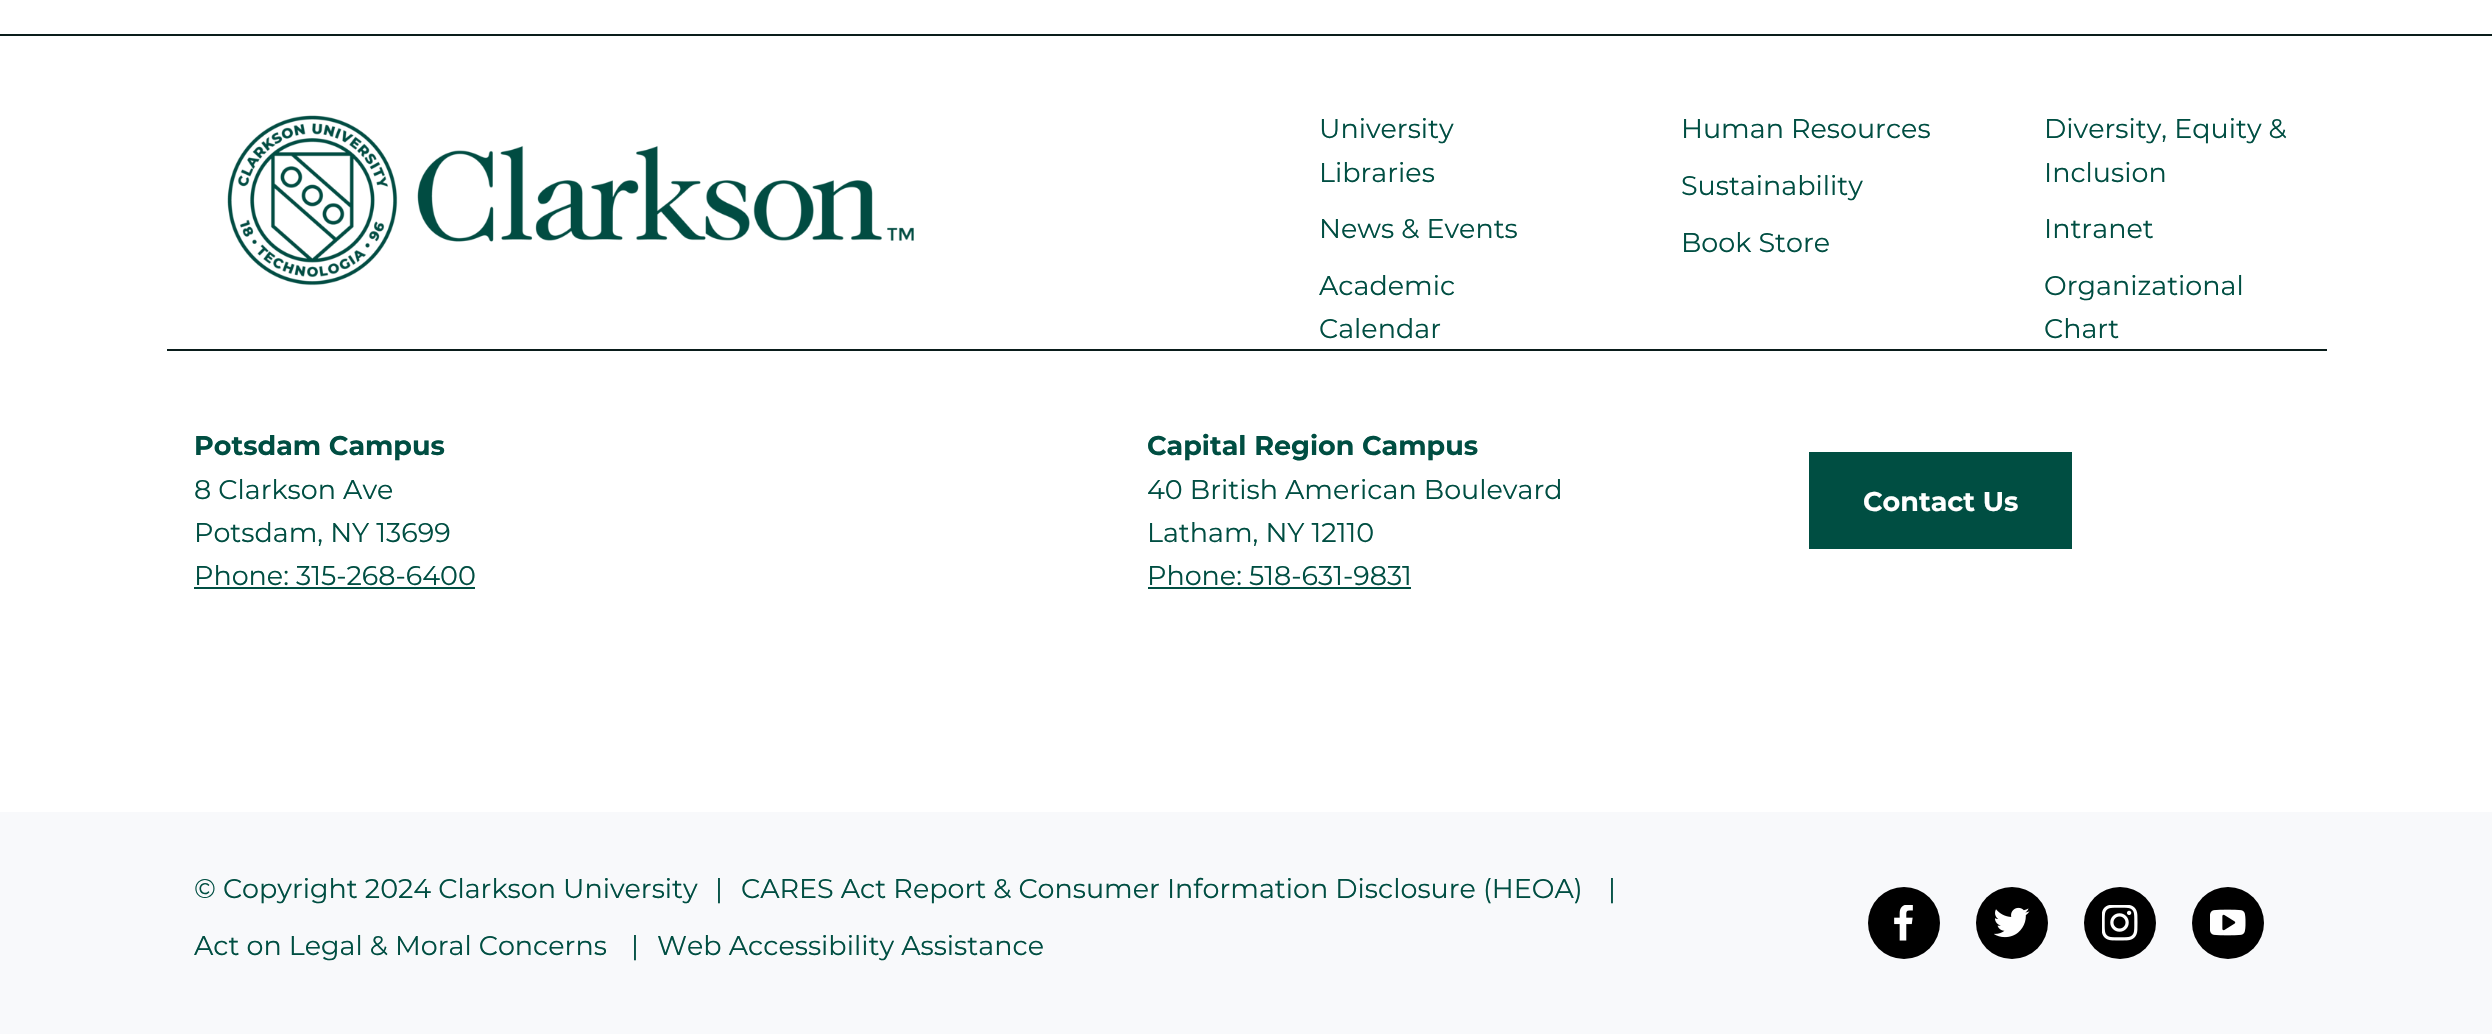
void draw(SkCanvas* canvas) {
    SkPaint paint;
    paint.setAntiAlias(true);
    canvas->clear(0xFFFFFFFF);
    paint.setColor(0xFF0A1D1B);
    canvas->drawRect(SkRect::MakeXYWH(0, 34, 2492, 2), paint);
    canvas->drawRect(SkRect::MakeXYWH(167, 349, 2160, 2), paint);
    canvas->drawImageRect(SkImages::DeferredFromEncodedData(SkData::MakeFromFileName("img1.png")), SkRect::MakeXYWH(227, 115, 687, 171), SkSamplingOptions());
    SkFont font1(fontMgr->matchFamilyStyle("Montserrat", SkFontStyle::Normal()), 27);
    font1.setSubpixel(true);
    paint.setColor(0xFF004E42);
    canvas->drawString("University", 1319, 138, font1, paint);
    canvas->drawString("Libraries", 1319, 182, font1, paint);
    canvas->drawString("Human Resources", 1681, 138, font1, paint);
    canvas->drawString("Diversity, Equity &", 2044, 138, font1, paint);
    canvas->drawString("Inclusion", 2044, 182, font1, paint);
    canvas->drawString("Sustainability", 1681, 195, font1, paint);
    canvas->drawString("News & Events", 1319, 238, font1, paint);
    canvas->drawString("Intranet", 2044, 238, font1, paint);
    canvas->drawString("Book Store", 1681, 252, font1, paint);
    canvas->drawString("Academic", 1319, 295, font1, paint);
    canvas->drawString("Calendar", 1319, 338, font1, paint);
    canvas->drawString("Organizational", 2044, 295, font1, paint);
    canvas->drawString("Chart", 2044, 338, font1, paint);
    SkFont font2(fontMgr->matchFamilyStyle("Montserrat", SkFontStyle::Bold()), 27);
    font2.setSubpixel(true);
    canvas->drawString("Potsdam Campus", 194, 455, font2, paint);
    canvas->drawString("8 Clarkson Ave", 194, 499, font1, paint);
    canvas->drawString("Potsdam, NY 13699", 194, 542, font1, paint);
    canvas->drawString("Phone: 315-268-6400", 194, 585, font1, paint);
    canvas->drawRect(SkRect::MakeXYWH(194, 587, 281, 2), paint);
    canvas->drawString("Capital Region Campus", 1147, 455, font2, paint);
    canvas->drawString("40 British American Boulevard", 1147, 499, font1, paint);
    canvas->drawString("Latham, NY 12110", 1147, 542, font1, paint);
    canvas->drawString("Phone: 518-631-9831", 1147, 585, font1, paint);
    canvas->drawRect(SkRect::MakeXYWH(1148, 587, 263, 2), paint);
    canvas->drawRect(SkRect::MakeXYWH(1809, 452, 263, 97), paint);
    paint.setColor(0xFFFFFFFF);
    canvas->drawString("Contact Us", 1863, 511, font2, paint);
    paint.setColor(0xFFF8F9FB);
    canvas->drawRect(SkRect::MakeXYWH(0, 812, 2492, 222), paint);
    paint.setColor(0xFF004E42);
    canvas->drawString("© Copyright 2024 Clarkson University", 194, 898, font1, paint);
    canvas->drawString("|", 715, 898, font1, paint);
    canvas->drawString("CARES Act Report & Consumer Information Disclosure (HEOA)", 741, 898, font1, paint);
    canvas->drawString("|", 1608, 898, font1, paint);
    canvas->drawString("Act on Legal & Moral Concerns", 194, 955, font1, paint);
    canvas->drawString("|", 631, 955, font1, paint);
    canvas->drawString("Web Accessibility Assistance", 657, 955, font1, paint);
    paint.setColor(0xFF000000);
    canvas->drawCircle(1904, 923, 36, paint);
    canvas->drawImageRect(SkImages::DeferredFromEncodedData(SkData::MakeFromFileName("img2.png")), SkRect::MakeXYWH(1894, 905, 19, 36), SkSamplingOptions());
    canvas->drawCircle(2012, 923, 36, paint);
    canvas->drawImageRect(SkImages::DeferredFromEncodedData(SkData::MakeFromFileName("img3.png")), SkRect::MakeXYWH(1994, 907, 36, 31), SkSamplingOptions());
    canvas->drawCircle(2120, 923, 36, paint);
    canvas->drawImageRect(SkImages::DeferredFromEncodedData(SkData::MakeFromFileName("img4.png")), SkRect::MakeXYWH(2102, 905, 36, 36), SkSamplingOptions());
    canvas->drawCircle(2228, 923, 36, paint);
    canvas->drawImageRect(SkImages::DeferredFromEncodedData(SkData::MakeFromFileName("img5.png")), SkRect::MakeXYWH(2210, 909, 36, 27), SkSamplingOptions());
}
